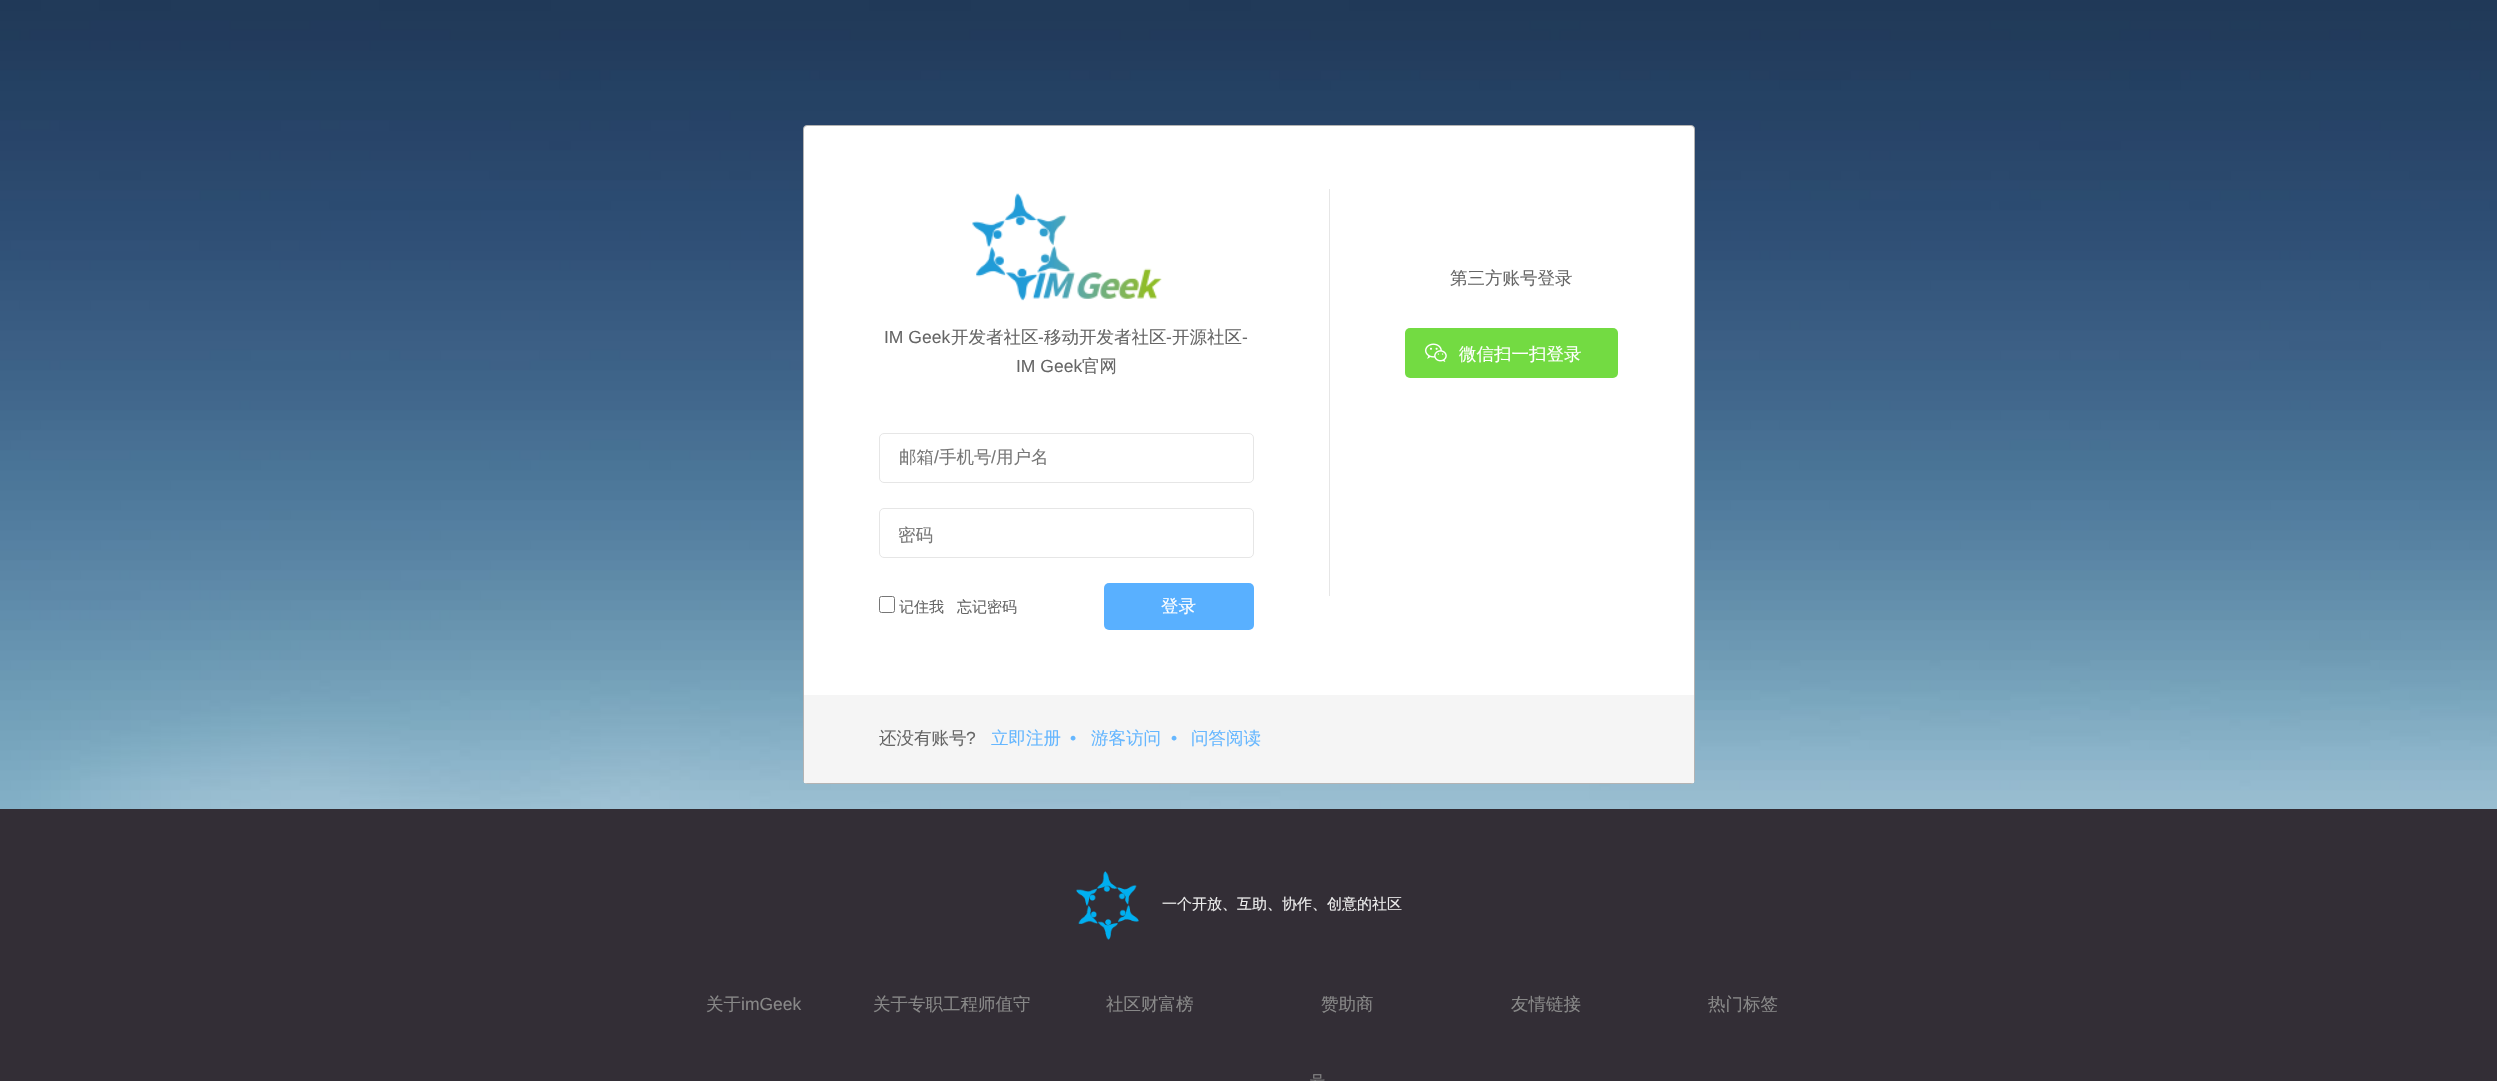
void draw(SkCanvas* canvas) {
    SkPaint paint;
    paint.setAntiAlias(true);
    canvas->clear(0xFFFFFFFF);
    canvas->drawImageRect(SkImages::DeferredFromEncodedData(SkData::MakeFromFileName("img1.png")), SkRect::MakeXYWH(0, 0, 2497, 809), SkSamplingOptions());
    paint.setColor(0xFFFFFFFF);
    canvas->drawRoundRect(SkRect::MakeXYWH(803.5f, 125.5f, 891, 658), 3.5f, 3.5f, paint);
    paint.setStyle(SkPaint::kStroke_Style);
    paint.setStrokeWidth(1);
    paint.setColor(0xFFB3B3B3);
    canvas->drawRoundRect(SkRect::MakeXYWH(803.5f, 125.5f, 891, 658), 3.5f, 3.5f, paint);
    paint.setStyle(SkPaint::kFill_Style);
    paint.setColor(0xFFE6E6E6);
    canvas->drawRect(SkRect::MakeXYWH(1329, 189, 1, 407), paint);
    SkFont font1(fontMgr->matchFamilyStyle("WenQuanYi Zen Hei", SkFontStyle(500, SkFontStyle::kNormal_Width, SkFontStyle::kUpright_Slant)), 17.5f);
    font1.setSubpixel(true);
    paint.setColor(0xFF666666);
    canvas->drawString("第三方账号登录", 1450, 284, font1, paint);
    paint.setColor(0xFF73DB42);
    canvas->drawRoundRect(SkRect::MakeXYWH(1405, 328, 213, 50), 5, 5, paint);
    canvas->drawImageRect(SkImages::DeferredFromEncodedData(SkData::MakeFromFileName("img2.png")), SkRect::MakeXYWH(1425, 343, 22, 19), SkSamplingOptions());
    paint.setColor(0xFFFFFFFF);
    canvas->drawString("微信扫一扫登录", 1459, 360, font1, paint);
    canvas->drawImageRect(SkImages::DeferredFromEncodedData(SkData::MakeFromFileName("img3.png")), SkRect::MakeXYWH(972, 193, 190, 108), SkSamplingOptions());
    SkFont font2(fontMgr->matchFamilyStyle("Liberation Sans", SkFontStyle::Normal()), 17.5f);
    font2.setSubpixel(true);
    paint.setColor(0xFF666666);
    canvas->drawString("IM Geek", 884, 343, font2, paint);
    canvas->drawString("开发者社区", 951, 343, font1, paint);
    canvas->drawString("-", 1038, 343, font2, paint);
    canvas->drawString("移动开发者社区", 1044, 343, font1, paint);
    canvas->drawString("-", 1166, 343, font2, paint);
    canvas->drawString("开源社区", 1172, 343, font1, paint);
    canvas->drawString("-", 1242, 343, font2, paint);
    canvas->drawString("IM Geek", 1016, 372, font2, paint);
    canvas->drawString("官网", 1082, 372, font1, paint);
    paint.setStyle(SkPaint::kStroke_Style);
    paint.setColor(0xFFE6E6E6);
    canvas->drawRoundRect(SkRect::MakeXYWH(879.5f, 433.5f, 374, 49), 4.5f, 4.5f, paint);
    paint.setStyle(SkPaint::kFill_Style);
    paint.setColor(0xFF777777);
    canvas->drawString("邮箱", 899, 463, font1, paint);
    canvas->drawString("/", 934, 463, font2, paint);
    canvas->drawString("手机号", 939, 463, font1, paint);
    canvas->drawString("/", 991, 463, font2, paint);
    canvas->drawString("用户名", 996, 463, font1, paint);
    paint.setStyle(SkPaint::kStroke_Style);
    paint.setColor(0xFFE6E6E6);
    canvas->drawRoundRect(SkRect::MakeXYWH(879.5f, 508.5f, 374, 49), 4.5f, 4.5f, paint);
    paint.setStyle(SkPaint::kFill_Style);
    paint.setColor(0xFF777777);
    canvas->drawString("密码", 898, 541, font1, paint);
    paint.setStyle(SkPaint::kStroke_Style);
    paint.setColor(0xFF767676);
    canvas->drawRoundRect(SkRect::MakeXYWH(879.5f, 596.5f, 15, 16), 2, 2, paint);
    SkFont font3(fontMgr->matchFamilyStyle("WenQuanYi Zen Hei", SkFontStyle(500, SkFontStyle::kNormal_Width, SkFontStyle::kUpright_Slant)), 15);
    font3.setSubpixel(true);
    paint.setStyle(SkPaint::kFill_Style);
    paint.setColor(0xFF666666);
    canvas->drawString("记住我", 899, 612, font3, paint);
    canvas->drawString("忘记密码", 957, 612, font3, paint);
    paint.setColor(0xFF59B0FF);
    canvas->drawRoundRect(SkRect::MakeXYWH(1104, 583, 150, 47), 5, 5, paint);
    paint.setColor(0xFFFFFFFF);
    canvas->drawString("登录", 1161, 612, font1, paint);
    paint.setColor(0xFFF5F5F5);
    canvas->drawRect(SkRect::MakeXYWH(804, 695, 890, 88), paint);
    paint.setColor(0xFF666666);
    canvas->drawString("还没有账号", 879, 744, font1, paint);
    canvas->drawString("?", 966, 744, font2, paint);
    paint.setColor(0xFF66B7FF);
    canvas->drawString("立即注册", 991, 744, font1, paint);
    canvas->drawString("•", 1070, 744, font2, paint);
    canvas->drawString("游客访问", 1091, 744, font1, paint);
    canvas->drawString("•", 1171, 744, font2, paint);
    canvas->drawString("问答阅读", 1191, 744, font1, paint);
    paint.setColor(0xFF332E36);
    canvas->drawRect(SkRect::MakeXYWH(0, 809, 2497, 272), paint);
    canvas->drawImageRect(SkImages::DeferredFromEncodedData(SkData::MakeFromFileName("img4.png")), SkRect::MakeXYWH(1076, 871, 63, 69), SkSamplingOptions());
    paint.setColor(0xFFEEEEEE);
    canvas->drawString("一个开放、互助、协作、创意的社区", 1162, 909, font3, paint);
    paint.setColor(0xFF888888);
    canvas->drawString("关于", 706, 1010, font1, paint);
    canvas->drawString("imGeek", 741, 1010, font2, paint);
    canvas->drawString("关于专职工程师值守", 873, 1010, font1, paint);
    canvas->drawString("社区财富榜", 1106, 1010, font1, paint);
    canvas->drawString("赞助商", 1321, 1010, font1, paint);
    canvas->drawString("友情链接", 1511, 1010, font1, paint);
    canvas->drawString("热门标签", 1708, 1010, font1, paint);
    canvas->drawString("号", 1310, 1086, font3, paint);
}
